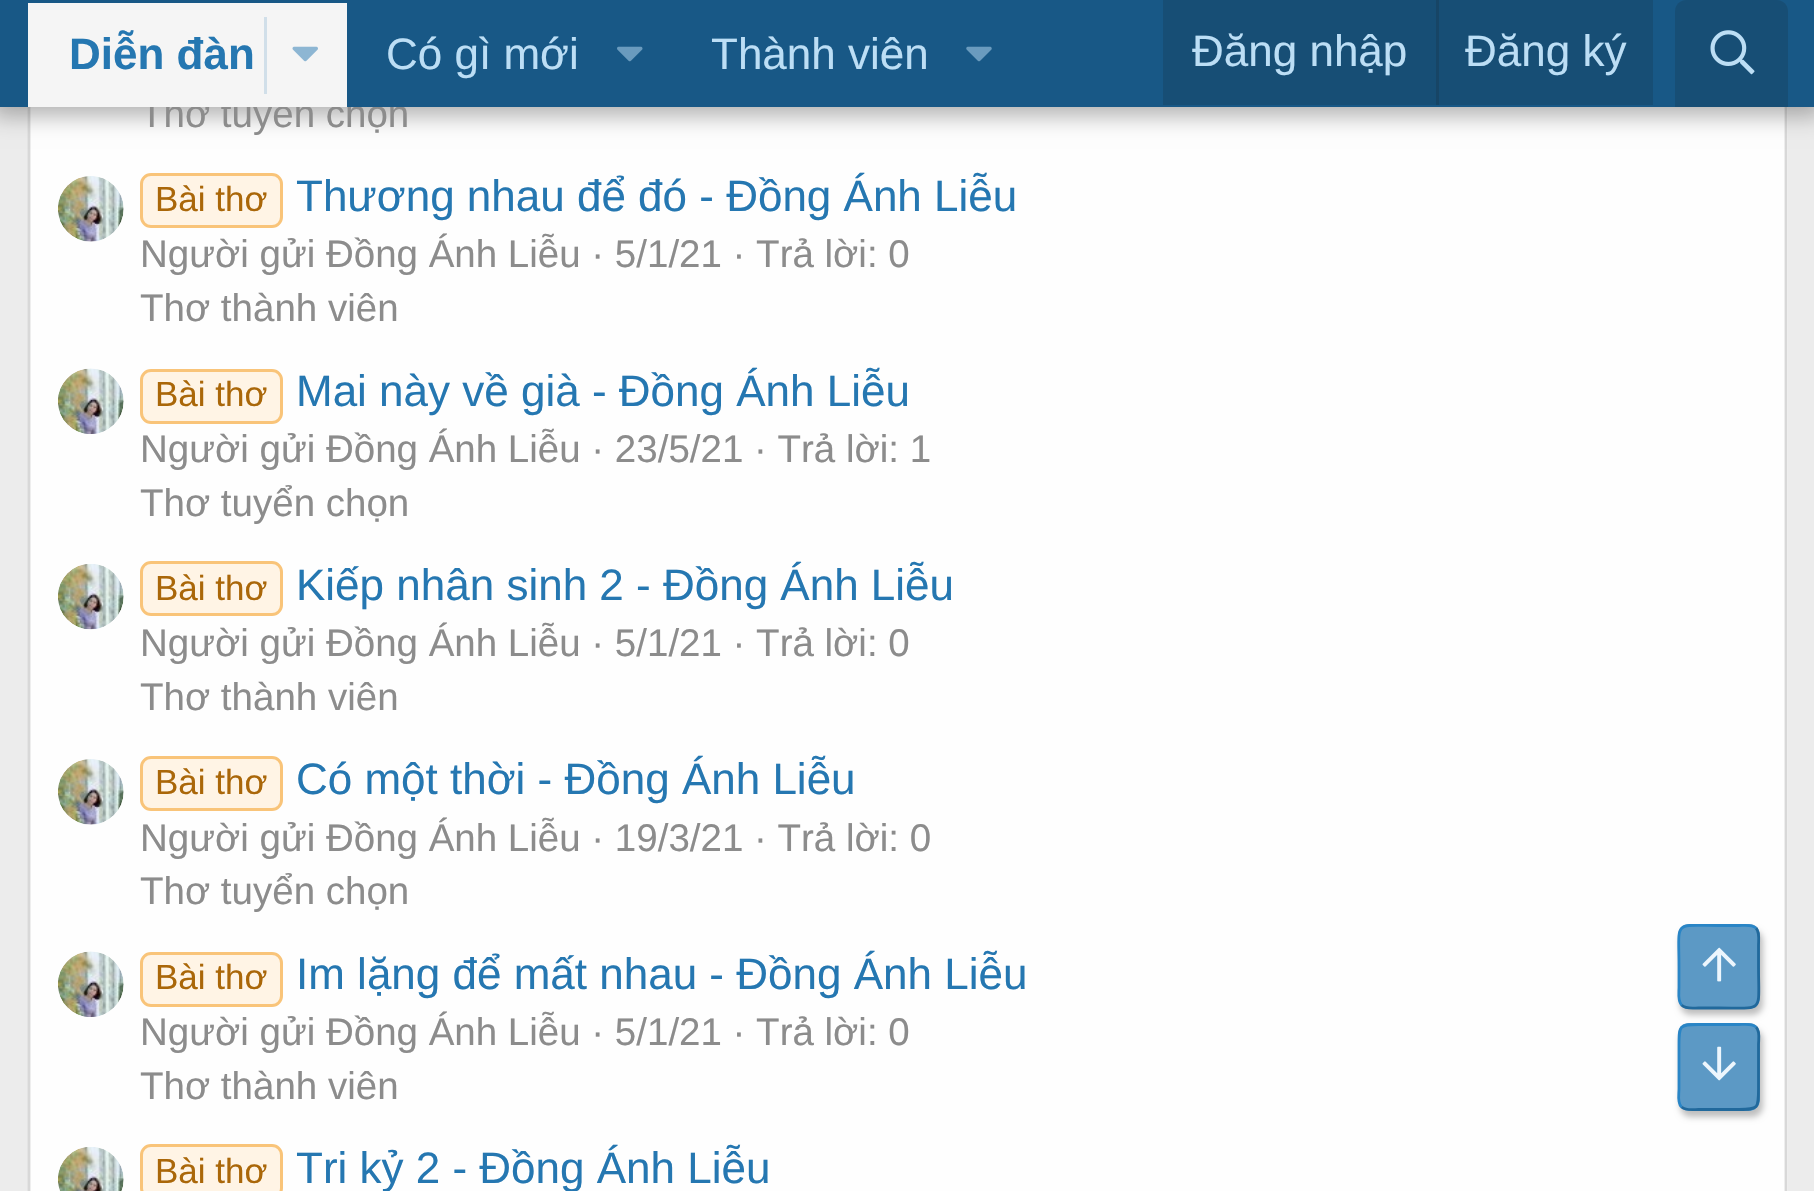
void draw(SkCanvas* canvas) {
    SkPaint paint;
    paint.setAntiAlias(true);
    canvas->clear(0xFFECECEC);
    paint.setColor(0xFFFEFEFE);
    canvas->drawRect(SkRect::MakeXYWH(30, 107, 1758, 1084), paint);
    paint.setStyle(SkPaint::kStroke_Style);
    paint.setStrokeWidth(2.8f);
    paint.setColor(0xFFD8D8D8);
    canvas->drawPath(SkPathBuilder().moveTo(1783.5f, -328.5f).cubicTo(1785, -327, 1786, -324.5f, 1786, -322).lineTo(1786, 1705).cubicTo(1786, 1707.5f, 1785, 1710, 1783.5f, 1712).detach(), paint);
    canvas->drawPath(SkPathBuilder().moveTo(31.5f, 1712).cubicTo(30, 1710, 29, 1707.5f, 29, 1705).lineTo(29, -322).cubicTo(29, -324.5f, 30, -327, 31.5f, -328.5f).detach(), paint);
    paint.setStyle(SkPaint::kFill_Style);
    paint.setColor(0x4D000000);
    paint.setMaskFilter(SkMaskFilter::MakeBlur(kNormal_SkBlurStyle, 11));
    canvas->drawRect(SkRect::MakeXYWH(-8, -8, 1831, 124), paint);
    paint.setMaskFilter(nullptr);
    SkFont font1(fontMgr->matchFamilyStyle("Liberation Sans", SkFontStyle::Normal()), 38.5f);
    font1.setSubpixel(true);
    paint.setColor(0xFF8C8C8C);
    canvas->drawString("Thơ tuyển chọn", 140, 127, font1, paint);
    paint.setColor(0xFF185886);
    canvas->drawRect(SkRect::MakeXYWH(0, 0, 1814, 107), paint);
    paint.setColor(0xFFF5F5F5);
    canvas->drawRect(SkRect::MakeXYWH(28, 3, 319, 104), paint);
    SkFont font2(fontMgr->matchFamilyStyle("Liberation Sans", SkFontStyle::Bold()), 44);
    font2.setSubpixel(true);
    paint.setColor(0xFF2577B1);
    canvas->drawString("Diễn đàn", 69, 69, font2, paint);
    paint.setColor(0xFFD1DFE9);
    canvas->drawRect(SkRect::MakeXYWH(264, 17, 3, 77), paint);
    canvas->drawImageRect(SkImages::DeferredFromEncodedData(SkData::MakeFromFileName("img1.png")), SkRect::MakeXYWH(292, 46, 26, 16), SkSamplingOptions());
    SkFont font3(fontMgr->matchFamilyStyle("Liberation Sans", SkFontStyle::Normal()), 44);
    font3.setSubpixel(true);
    paint.setColor(0xFFBCDEF5);
    canvas->drawString("Có gì mới", 386, 69, font3, paint);
    canvas->drawImageRect(SkImages::DeferredFromEncodedData(SkData::MakeFromFileName("img2.png")), SkRect::MakeXYWH(617, 46, 26, 16), SkSamplingOptions());
    canvas->drawString("Thành viên", 711, 69, font3, paint);
    canvas->drawImageRect(SkImages::DeferredFromEncodedData(SkData::MakeFromFileName("img3.png")), SkRect::MakeXYWH(966, 46, 26, 16), SkSamplingOptions());
    paint.setColor(0xFF174E75);
    canvas->drawRect(SkRect::MakeXYWH(1163, 0, 490, 105), paint);
    paint.setColor(0xFFBCDEF5);
    canvas->drawString("Đăng nhập", 1192, 66, font3, paint);
    paint.setColor(0xFF174566);
    canvas->drawRect(SkRect::MakeXYWH(1436, 0, 3, 105), paint);
    paint.setColor(0xFFBCDEF5);
    canvas->drawString("Đăng ký", 1465, 66, font3, paint);
    paint.setColor(0xFF174E75);
    canvas->drawPath(SkPathBuilder().moveTo(1686, 0).lineTo(1777, 0).cubicTo(1783, 0, 1788, 5, 1788, 11).lineTo(1788, 107).lineTo(1675, 107).lineTo(1675, 11).cubicTo(1675, 5, 1680, 0, 1686, 0).close().detach(), paint);
    canvas->drawImageRect(SkImages::DeferredFromEncodedData(SkData::MakeFromFileName("img4.png")), SkRect::MakeXYWH(1710, 30, 45, 45), SkSamplingOptions());
    canvas->drawImageRect(SkImages::DeferredFromEncodedData(SkData::MakeFromFileName("img5.png")), SkRect::MakeXYWH(58, 176, 66, 66), SkSamplingOptions());
    paint.setColor(0xFFFFF4E5);
    canvas->drawRoundRect(SkRect::MakeXYWH(141.5f, 174.5f, 140, 52), 9.5f, 9.5f, paint);
    paint.setStyle(SkPaint::kStroke_Style);
    paint.setStrokeWidth(3);
    paint.setColor(0xFFF9C479);
    canvas->drawRoundRect(SkRect::MakeXYWH(141.5f, 174.5f, 140, 52), 9.5f, 9.5f, paint);
    SkFont font4(fontMgr->matchFamilyStyle("Liberation Sans", SkFontStyle::Normal()), 35);
    font4.setSubpixel(true);
    paint.setStyle(SkPaint::kFill_Style);
    paint.setColor(0xFFAA6709);
    canvas->drawString("Bài thơ", 155, 211, font4, paint);
    paint.setColor(0xFF2577B1);
    canvas->drawString("Thương nhau để đó - Đồng Ánh Liễu", 296, 211, font3, paint);
    paint.setColor(0xFF8C8C8C);
    canvas->drawString("Người gửi Đồng Ánh Liễu · 5/1/21 · Trả lời: 0", 140, 267, font1, paint);
    canvas->drawString("Thơ thành viên", 140, 321, font1, paint);
    canvas->drawImageRect(SkImages::DeferredFromEncodedData(SkData::MakeFromFileName("img6.png")), SkRect::MakeXYWH(58, 368, 66, 66), SkSamplingOptions());
    paint.setColor(0xFFFFF4E5);
    canvas->drawRoundRect(SkRect::MakeXYWH(141.5f, 370.5f, 140, 52), 9.5f, 9.5f, paint);
    paint.setStyle(SkPaint::kStroke_Style);
    paint.setColor(0xFFF9C479);
    canvas->drawRoundRect(SkRect::MakeXYWH(141.5f, 370.5f, 140, 52), 9.5f, 9.5f, paint);
    paint.setStyle(SkPaint::kFill_Style);
    paint.setColor(0xFFAA6709);
    canvas->drawString("Bài thơ", 155, 406, font4, paint);
    paint.setColor(0xFF2577B1);
    canvas->drawString("Mai này về già - Đồng Ánh Liễu", 296, 406, font3, paint);
    paint.setColor(0xFF8C8C8C);
    canvas->drawString("Người gửi Đồng Ánh Liễu · 23/5/21 · Trả lời: 1", 140, 462, font1, paint);
    canvas->drawString("Thơ tuyển chọn", 140, 516, font1, paint);
    canvas->drawImageRect(SkImages::DeferredFromEncodedData(SkData::MakeFromFileName("img7.png")), SkRect::MakeXYWH(58, 564, 66, 66), SkSamplingOptions());
    paint.setColor(0xFFFFF4E5);
    canvas->drawRoundRect(SkRect::MakeXYWH(141.5f, 562.5f, 140, 52), 9.5f, 9.5f, paint);
    paint.setStyle(SkPaint::kStroke_Style);
    paint.setColor(0xFFF9C479);
    canvas->drawRoundRect(SkRect::MakeXYWH(141.5f, 562.5f, 140, 52), 9.5f, 9.5f, paint);
    paint.setStyle(SkPaint::kFill_Style);
    paint.setColor(0xFFAA6709);
    canvas->drawString("Bài thơ", 155, 600, font4, paint);
    paint.setColor(0xFF2577B1);
    canvas->drawString("Kiếp nhân sinh 2 - Đồng Ánh Liễu", 296, 600, font3, paint);
    paint.setColor(0xFF8C8C8C);
    canvas->drawString("Người gửi Đồng Ánh Liễu · 5/1/21 · Trả lời: 0", 140, 656, font1, paint);
    canvas->drawString("Thơ thành viên", 140, 710, font1, paint);
    canvas->drawImageRect(SkImages::DeferredFromEncodedData(SkData::MakeFromFileName("img5.png")), SkRect::MakeXYWH(58, 759, 66, 66), SkSamplingOptions());
    paint.setColor(0xFFFFF4E5);
    canvas->drawRoundRect(SkRect::MakeXYWH(141.5f, 757.5f, 140, 52), 9.5f, 9.5f, paint);
    paint.setStyle(SkPaint::kStroke_Style);
    paint.setColor(0xFFF9C479);
    canvas->drawRoundRect(SkRect::MakeXYWH(141.5f, 757.5f, 140, 52), 9.5f, 9.5f, paint);
    paint.setStyle(SkPaint::kFill_Style);
    paint.setColor(0xFFAA6709);
    canvas->drawString("Bài thơ", 155, 794, font4, paint);
    paint.setColor(0xFF2577B1);
    canvas->drawString("Có một thời - Đồng Ánh Liễu", 296, 794, font3, paint);
    paint.setColor(0xFF8C8C8C);
    canvas->drawString("Người gửi Đồng Ánh Liễu · 19/3/21 · Trả lời: 0", 140, 851, font1, paint);
    canvas->drawString("Thơ tuyển chọn", 140, 904, font1, paint);
    canvas->drawImageRect(SkImages::DeferredFromEncodedData(SkData::MakeFromFileName("img6.png")), SkRect::MakeXYWH(58, 951, 66, 66), SkSamplingOptions());
    paint.setColor(0xFFFFF4E5);
    canvas->drawRoundRect(SkRect::MakeXYWH(141.5f, 953.5f, 140, 52), 9.5f, 9.5f, paint);
    paint.setStyle(SkPaint::kStroke_Style);
    paint.setColor(0xFFF9C479);
    canvas->drawRoundRect(SkRect::MakeXYWH(141.5f, 953.5f, 140, 52), 9.5f, 9.5f, paint);
    paint.setStyle(SkPaint::kFill_Style);
    paint.setColor(0xFFAA6709);
    canvas->drawString("Bài thơ", 155, 989, font4, paint);
    paint.setColor(0xFF2577B1);
    canvas->drawString("Im lặng để mất nhau - Đồng Ánh Liễu", 296, 989, font3, paint);
    paint.setColor(0xFF8C8C8C);
    canvas->drawString("Người gửi Đồng Ánh Liễu · 5/1/21 · Trả lời: 0", 140, 1045, font1, paint);
    canvas->drawString("Thơ thành viên", 140, 1099, font1, paint);
    canvas->drawImageRect(SkImages::DeferredFromEncodedData(SkData::MakeFromFileName("img8.png")), SkRect::MakeXYWH(58, 1147, 66, 44), SkSamplingOptions());
    paint.setColor(0xFFFFF4E5);
    canvas->drawRoundRect(SkRect::MakeXYWH(141.5f, 1145.5f, 140, 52), 9.5f, 9.5f, paint);
    paint.setStyle(SkPaint::kStroke_Style);
    paint.setColor(0xFFF9C479);
    canvas->drawRoundRect(SkRect::MakeXYWH(141.5f, 1145.5f, 140, 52), 9.5f, 9.5f, paint);
    paint.setStyle(SkPaint::kFill_Style);
    paint.setColor(0xFFAA6709);
    canvas->drawString("Bài thơ", 155, 1183, font4, paint);
    paint.setColor(0xFF2577B1);
    canvas->drawString("Tri kỷ 2 - Đồng Ánh Liễu", 296, 1183, font3, paint);
    canvas->save();
    canvas->clipPath(SkPathBuilder(SkPathFillType::kEvenOdd).moveTo(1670, 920).lineTo(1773, 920).lineTo(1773, 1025).lineTo(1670, 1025).close().moveTo(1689, 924).lineTo(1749, 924).cubicTo(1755, 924, 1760, 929, 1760, 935).lineTo(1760, 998).cubicTo(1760, 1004, 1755, 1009, 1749, 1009).lineTo(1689, 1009).cubicTo(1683, 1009, 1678, 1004, 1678, 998).lineTo(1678, 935).cubicTo(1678, 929, 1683, 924, 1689, 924).close().detach(), true);
    paint.setColor(0x40000000);
    paint.setMaskFilter(SkMaskFilter::MakeBlur(kNormal_SkBlurStyle, 3));
    canvas->drawRoundRect(SkRect::MakeXYWH(1680, 930, 83, 85), 11, 11, paint);
    paint.setMaskFilter(nullptr);
    canvas->restore();
    paint.setColor(0xBF2577B1);
    canvas->drawRoundRect(SkRect::MakeXYWH(1678, 924, 82, 85), 11, 11, paint);
    paint.setStyle(SkPaint::kStroke_Style);
    paint.setStrokeWidth(2.8f);
    paint.setColor(0xFF21699C);
    canvas->drawPath(SkPathBuilder().moveTo(1756, 928).cubicTo(1760, 932.5f, 1758.5f, 940.5f, 1758.5f, 945.5f).lineTo(1758.5f, 966.5f).cubicTo(1758.5f, 1013.5f, 1765, 1008, 1719, 1008).lineTo(1698.5f, 1008).cubicTo(1693.5f, 1008, 1686, 1009.5f, 1681.5f, 1005).detach(), paint);
    paint.setColor(0xFF2985C6);
    canvas->drawPath(SkPathBuilder().moveTo(1681.5f, 1005).cubicTo(1677.5f, 1000.5f, 1679, 993, 1679, 987.5f).lineTo(1679, 966.5f).cubicTo(1679, 919.5f, 1672.5f, 925.5f, 1719, 925.5f).lineTo(1739, 925.5f).cubicTo(1744, 925.5f, 1751.5f, 924, 1756, 928).detach(), paint);
    canvas->drawImageRect(SkImages::DeferredFromEncodedData(SkData::MakeFromFileName("img9.png")), SkRect::MakeXYWH(1702, 947, 34, 35), SkSamplingOptions());
    canvas->save();
    canvas->clipPath(SkPathBuilder(SkPathFillType::kEvenOdd).moveTo(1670, 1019).lineTo(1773, 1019).lineTo(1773, 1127).lineTo(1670, 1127).close().moveTo(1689, 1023).lineTo(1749, 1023).cubicTo(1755, 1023, 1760, 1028, 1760, 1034).lineTo(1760, 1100).cubicTo(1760, 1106, 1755, 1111, 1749, 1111).lineTo(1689, 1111).cubicTo(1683, 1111, 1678, 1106, 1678, 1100).lineTo(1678, 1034).cubicTo(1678, 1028, 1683, 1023, 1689, 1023).close().detach(), true);
    paint.setStyle(SkPaint::kFill_Style);
    paint.setColor(0x40000000);
    paint.setMaskFilter(SkMaskFilter::MakeBlur(kNormal_SkBlurStyle, 3));
    canvas->drawRoundRect(SkRect::MakeXYWH(1680, 1029, 83, 88), 11, 11, paint);
    paint.setMaskFilter(nullptr);
    canvas->restore();
    paint.setColor(0xBF2577B1);
    canvas->drawRoundRect(SkRect::MakeXYWH(1678, 1023, 82, 88), 11, 11, paint);
    paint.setStyle(SkPaint::kStroke_Style);
    paint.setColor(0xFF21699C);
    canvas->drawPath(SkPathBuilder().moveTo(1756, 1027).cubicTo(1760.5f, 1031.5f, 1758.5f, 1039.5f, 1758.5f, 1045).lineTo(1758.5f, 1089).cubicTo(1758.5f, 1108.5f, 1758.5f, 1109.5f, 1739, 1109.5f).lineTo(1698.5f, 1109.5f).cubicTo(1693.5f, 1109.5f, 1686, 1111, 1681.5f, 1107).detach(), paint);
    paint.setColor(0xFF2985C6);
    canvas->drawPath(SkPathBuilder().moveTo(1681.5f, 1107).cubicTo(1677, 1102.5f, 1679, 1094.5f, 1679, 1089).lineTo(1679, 1045).cubicTo(1679, 1025.5f, 1679, 1024.5f, 1698.5f, 1024.5f).lineTo(1739, 1024.5f).cubicTo(1744, 1024.5f, 1751.5f, 1023, 1756, 1027).detach(), paint);
    canvas->drawImageRect(SkImages::DeferredFromEncodedData(SkData::MakeFromFileName("img10.png")), SkRect::MakeXYWH(1702, 1046, 34, 35), SkSamplingOptions());
}
